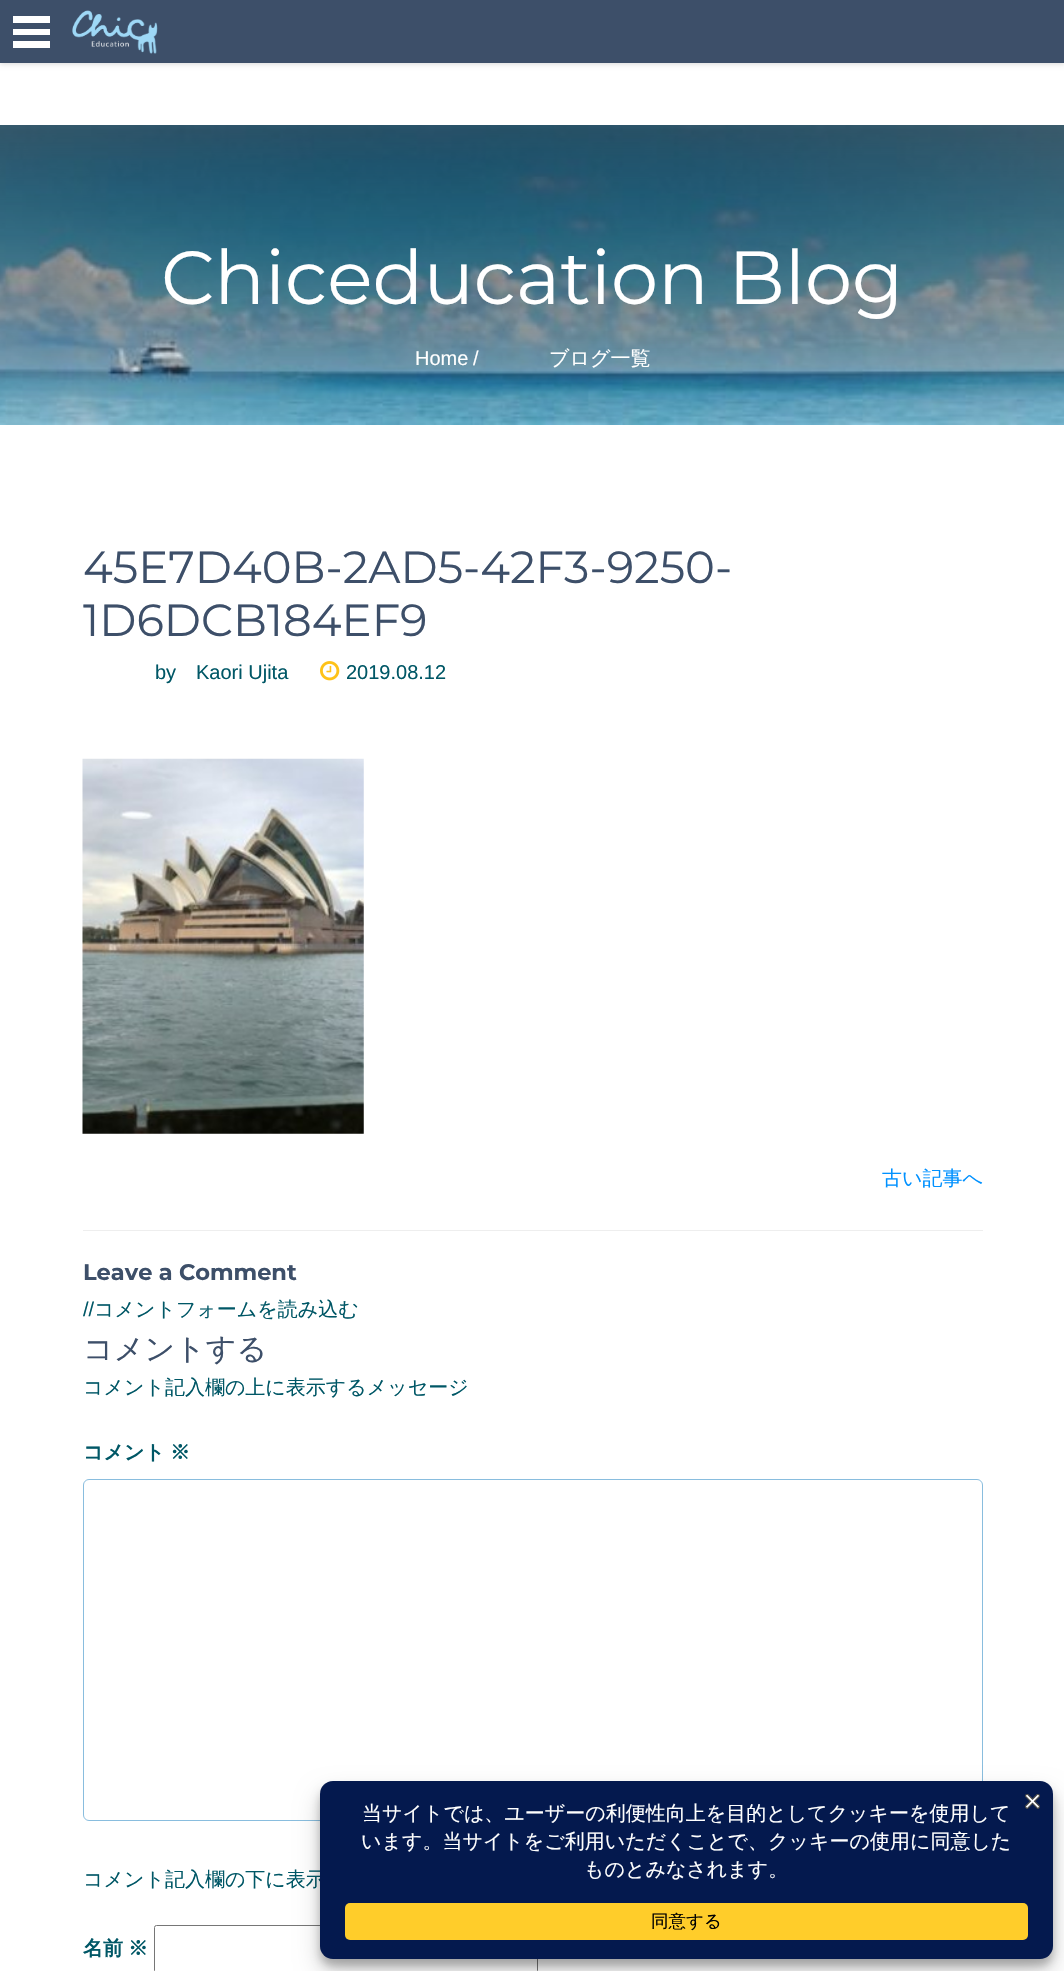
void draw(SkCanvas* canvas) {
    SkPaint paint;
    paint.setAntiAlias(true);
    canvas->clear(0xFFFFFFFF);
    paint.setColor(0x26000000);
    paint.setMaskFilter(SkMaskFilter::MakeBlur(kNormal_SkBlurStyle, 2.5f));
    canvas->drawRect(SkRect::MakeXYWH(0, 1, 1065, 63), paint);
    paint.setMaskFilter(nullptr);
    paint.setColor(0xFF3D4F69);
    canvas->drawRect(SkRect::MakeXYWH(0, 0, 1064, 63), paint);
    paint.setColor(0xFFFFFFFF);
    canvas->drawRect(SkRect::MakeXYWH(13, 29, 37, 6), paint);
    canvas->drawRect(SkRect::MakeXYWH(13, 16, 37, 7), paint);
    canvas->drawRect(SkRect::MakeXYWH(13, 41, 37, 7), paint);
    canvas->drawImageRect(SkImages::DeferredFromEncodedData(SkData::MakeFromFileName("img1.png")), SkRect::MakeXYWH(72, 10, 86, 44), SkSamplingOptions());
    canvas->drawImageRect(SkImages::DeferredFromEncodedData(SkData::MakeFromFileName("img2.png")), SkRect::MakeXYWH(0, 125, 1064, 300), SkSamplingOptions());
    SkFont font1(fontMgr->matchFamilyStyle("Montserrat", SkFontStyle::Normal()), 75);
    font1.setSubpixel(true);
    canvas->drawString("Chiceducation Blog", 161, 304, font1, paint);
    SkFont font2(fontMgr->matchFamilyStyle("Liberation Sans", SkFontStyle::Normal()), 20);
    font2.setSubpixel(true);
    canvas->drawString("Home", 415, 365, font2, paint);
    canvas->drawString("/", 473, 365, font2, paint);
    SkFont font3(fontMgr->matchFamilyStyle("WenQuanYi Zen Hei", SkFontStyle(500, SkFontStyle::kNormal_Width, SkFontStyle::kUpright_Slant)), 20);
    font3.setSubpixel(true);
    canvas->drawString("ブログ一覧", 549, 365, font3, paint);
    SkFont font4(fontMgr->matchFamilyStyle("Montserrat", SkFontStyle::Normal()), 45);
    font4.setSubpixel(true);
    paint.setColor(0xFF3D4F69);
    canvas->drawString("45E7D40B-2AD5-42F3-9250-", 83, 583, font4, paint);
    canvas->drawString("1D6DCB184EF9", 83, 636, font4, paint);
    paint.setColor(0xFF005766);
    canvas->drawString("by", 155, 679, font2, paint);
    canvas->drawString("Kaori Ujita", 196, 679, font2, paint);
    canvas->drawImageRect(SkImages::DeferredFromEncodedData(SkData::MakeFromFileName("img3.png")), SkRect::MakeXYWH(320, 661, 20, 20), SkSamplingOptions());
    canvas->drawString("2019.08.12", 346, 679, font2, paint);
    canvas->drawImageRect(SkImages::DeferredFromEncodedData(SkData::MakeFromFileName("img4.png")), SkRect::MakeXYWH(82, 758, 282, 376), SkSamplingOptions());
    paint.setColor(0xFF0091FF);
    canvas->drawString("古い記事へ", 882, 1185, font3, paint);
    paint.setColor(0xFFEEEEEE);
    canvas->drawRect(SkRect::MakeXYWH(83, 1230, 900, 1), paint);
    SkFont font5(fontMgr->matchFamilyStyle("Montserrat", SkFontStyle::Bold()), 22.5f);
    font5.setSubpixel(true);
    paint.setColor(0xFF3D4F69);
    canvas->drawString("Leave a Comment", 83, 1280, font5, paint);
    paint.setColor(0xFF005766);
    canvas->drawString("//", 83, 1316, font2, paint);
    canvas->drawString("コメントフォームを読み込む", 94, 1316, font3, paint);
    SkFont font6(fontMgr->matchFamilyStyle("WenQuanYi Zen Hei", SkFontStyle(500, SkFontStyle::kNormal_Width, SkFontStyle::kUpright_Slant)), 30);
    font6.setSubpixel(true);
    paint.setColor(0xFF3D4F69);
    canvas->drawString("コメントする", 83, 1359, font6, paint);
    paint.setColor(0xFF005766);
    canvas->drawString("コメント記入欄の上に表示するメッセージ", 83, 1394, font3, paint);
    SkFont font7(fontMgr->matchFamilyStyle("WenQuanYi Zen Hei", SkFontStyle::Bold()), 20);
    font7.setSubpixel(true);
    canvas->drawString("コメント", 83, 1459, font7, paint);
    canvas->drawString("※", 170, 1459, font7, paint);
    paint.setStyle(SkPaint::kStroke_Style);
    paint.setStrokeWidth(1);
    paint.setColor(0xFF89BDDE);
    canvas->drawRoundRect(SkRect::MakeXYWH(83.5f, 1479.5f, 899, 341), 5.5f, 5.5f, paint);
    paint.setStyle(SkPaint::kFill_Style);
    paint.setColor(0xFF005766);
    canvas->drawString("コメント記入欄の下に表示", 83, 1886, font3, paint);
    canvas->drawString("名前", 83, 1955, font7, paint);
    canvas->drawString("※", 128, 1955, font7, paint);
    paint.setStyle(SkPaint::kStroke_Style);
    paint.setColor(0xFF767676);
    canvas->drawRoundRect(SkRect::MakeXYWH(154.5f, 1925.5f, 383, 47), 2, 2, paint);
    paint.setStyle(SkPaint::kFill_Style);
    paint.setColor(0x3B000000);
    paint.setMaskFilter(SkMaskFilter::MakeBlur(kNormal_SkBlurStyle, 4));
    canvas->drawRoundRect(SkRect::MakeXYWH(320, 1789, 733, 177), 13, 13, paint);
    paint.setMaskFilter(nullptr);
    paint.setColor(0x30000000);
    paint.setMaskFilter(SkMaskFilter::MakeBlur(kNormal_SkBlurStyle, 12.5f));
    canvas->drawRoundRect(SkRect::MakeXYWH(320, 1794, 733, 177), 13, 13, paint);
    paint.setMaskFilter(nullptr);
    paint.setColor(0xFF04194E);
    canvas->drawRoundRect(SkRect::MakeXYWH(320, 1781, 733, 178), 13, 13, paint);
    canvas->drawImageRect(SkImages::DeferredFromEncodedData(SkData::MakeFromFileName("img5.png")), SkRect::MakeXYWH(1025, 1794, 15, 15), SkSamplingOptions());
    paint.setColor(0xFFFFFFFF);
    canvas->drawString("当サイトでは、ユーザーの利便性向上を目的としてクッキーを使用して", 362, 1820, font3, paint);
    canvas->drawString("います。当サイトをご利用いただくことで、クッキーの使用に同意した", 361, 1848, font3, paint);
    canvas->drawString("ものとみなされます。", 584, 1876, font3, paint);
    paint.setColor(0xFFFFCD2A);
    canvas->drawRoundRect(SkRect::MakeXYWH(345, 1903, 683, 37), 5, 5, paint);
    SkFont font8(fontMgr->matchFamilyStyle("WenQuanYi Zen Hei", SkFontStyle(500, SkFontStyle::kNormal_Width, SkFontStyle::kUpright_Slant)), 17.5f);
    font8.setSubpixel(true);
    paint.setColor(0xFF000000);
    canvas->drawString("同意する", 651, 1927, font8, paint);
}
